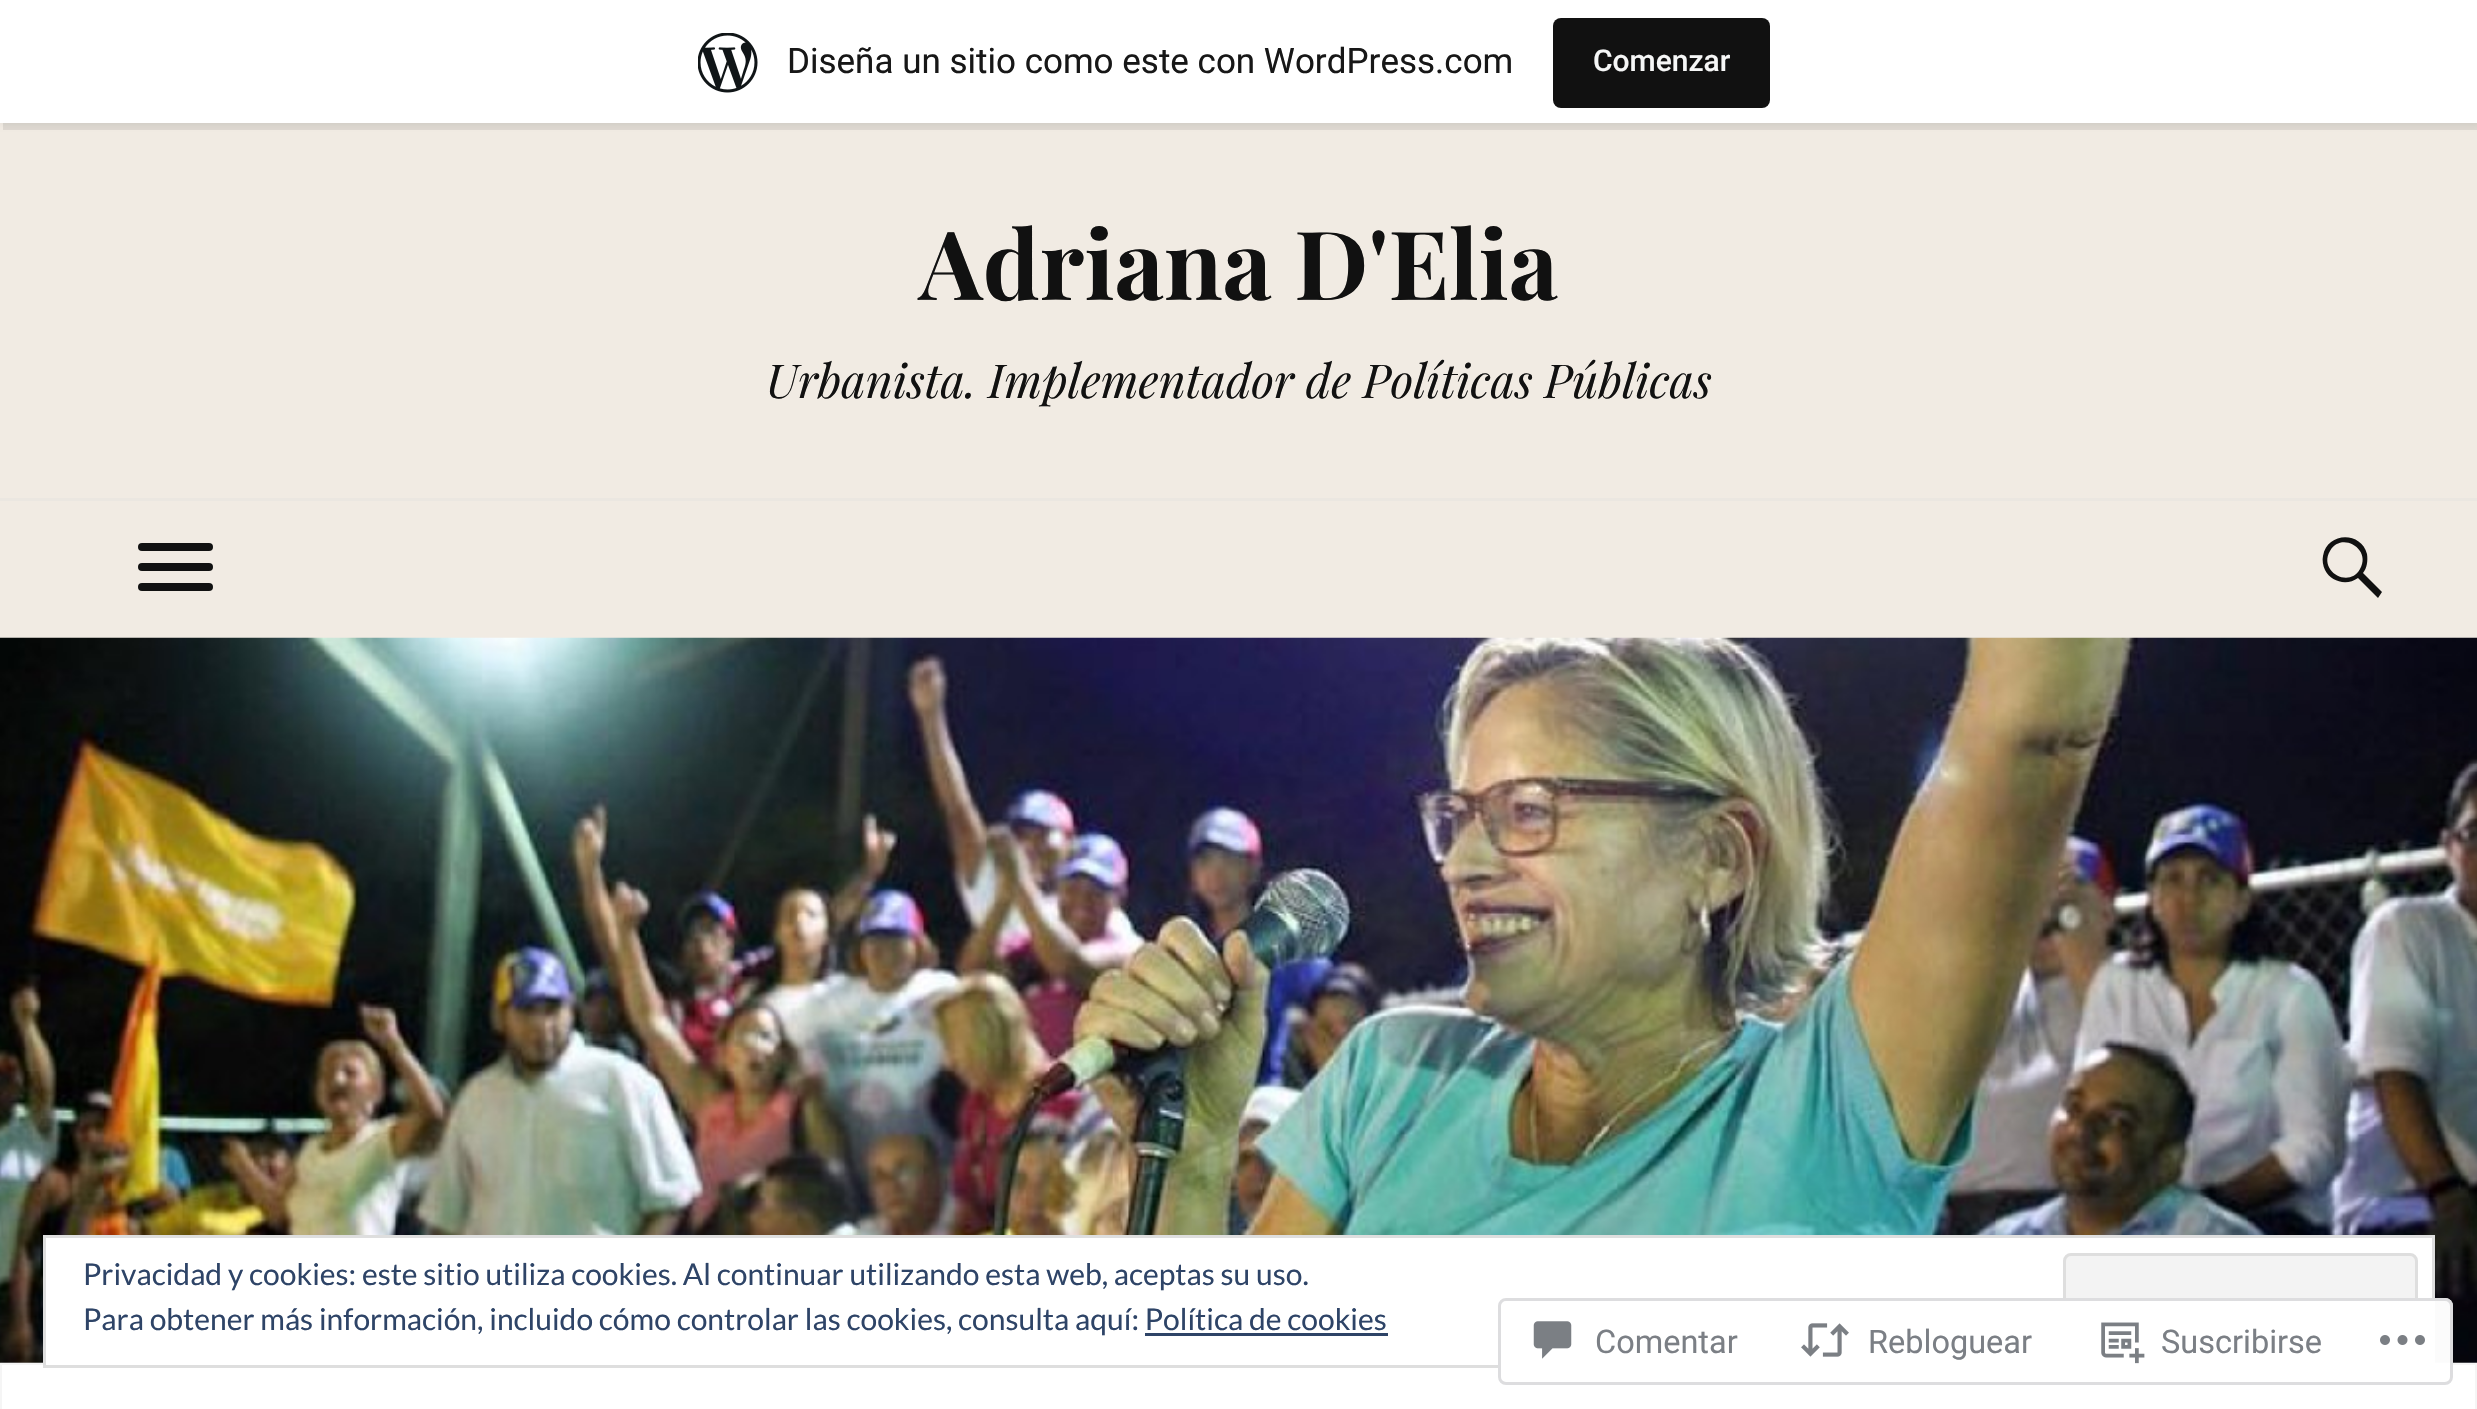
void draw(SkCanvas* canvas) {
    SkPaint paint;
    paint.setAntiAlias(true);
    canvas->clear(0xFFF1EBE3);
    paint.setColor(0x0D000000);
    paint.setMaskFilter(SkMaskFilter::MakeBlur(kNormal_SkBlurStyle, 2.5f));
    canvas->drawRect(SkRect::MakeXYWH(0, 3, 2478, 122), paint);
    paint.setMaskFilter(nullptr);
    paint.setColor(0x14000000);
    canvas->drawPath(SkPathBuilder().moveTo(3, 122).lineTo(3, 130).lineTo(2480, 130).lineTo(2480, 8).lineTo(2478, 8).lineTo(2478, 122).close().detach(), paint);
    paint.setColor(0xFFFFFFFF);
    canvas->drawRect(SkRect::MakeXYWH(0, 0, 2477, 123), paint);
    canvas->drawImageRect(SkImages::DeferredFromEncodedData(SkData::MakeFromFileName("img1.png")), SkRect::MakeXYWH(698, 33, 60, 60), SkSamplingOptions());
    SkFont font1(fontMgr->matchFamilyStyle("Roboto", SkFontStyle::Normal()), 35);
    font1.setSubpixel(true);
    paint.setColor(0xFF171717);
    canvas->drawString("Diseña un sitio como este con WordPress.com", 787, 73, font1, paint);
    paint.setColor(0xFF111111);
    canvas->drawRoundRect(SkRect::MakeXYWH(1553, 18, 217, 90), 8, 8, paint);
    SkFont font2(fontMgr->matchFamilyStyle("Roboto", SkFontStyle(500, SkFontStyle::kNormal_Width, SkFontStyle::kUpright_Slant)), 30);
    font2.setSubpixel(true);
    paint.setColor(0xFFF6F7F7);
    canvas->drawString("Comenzar", 1593, 71, font2, paint);
    SkFont font3(fontMgr->matchFamilyStyle("Playfair Display", SkFontStyle::Bold()), 95.5f);
    font3.setSubpixel(true);
    paint.setColor(0xFF111111);
    canvas->drawString("Adriana D'Elia", 919, 300, font3, paint);
    SkFont font4(fontMgr->matchFamilyStyle("Playfair Display", SkFontStyle::Italic()), 46.75f);
    font4.setSubpixel(true);
    canvas->drawString("Urbanista. Implementador de Políticas Públicas", 766, 398, font4, paint);
    paint.setColor(0xFFEBE7E1);
    canvas->drawRect(SkRect::MakeXYWH(0, 498, 2477, 3), paint);
    paint.setColor(0xFF111111);
    canvas->drawRoundRect(SkRect::MakeXYWH(138, 543, 75, 8), 4, 4, paint);
    canvas->drawRoundRect(SkRect::MakeXYWH(138, 563, 75, 8), 4, 4, paint);
    canvas->drawRoundRect(SkRect::MakeXYWH(138, 583, 75, 8), 4, 4, paint);
    canvas->drawPath(SkPathBuilder().moveTo(2382, 592).lineTo(2378, 598).lineTo(2358, 578).cubicTo(2347, 586, 2331, 582, 2325, 570).cubicTo(2323, 566, 2322, 560, 2323, 556).cubicTo(2327, 532, 2361, 531, 2367, 554).cubicTo(2368, 561, 2367, 568, 2363, 573).close().moveTo(2330, 551).cubicTo(2318, 571, 2349, 589, 2360, 569).cubicTo(2372, 549, 2341, 531, 2330, 551).close().detach(), paint);
    canvas->drawImageRect(SkImages::DeferredFromEncodedData(SkData::MakeFromFileName("img2.png")), SkRect::MakeXYWH(0, 637, 2477, 726), SkSamplingOptions());
    paint.setColor(0xFFFFFFFF);
    canvas->drawRect(SkRect::MakeXYWH(0, 1363, 2477, 46), paint);
    paint.setColor(0x4DDDDDDD);
    canvas->drawPath(SkPathBuilder().moveTo(0, 1362).lineTo(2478, 1362).lineTo(2475, 1365).lineTo(2, 1365).close().detach(), paint);
    canvas->drawPath(SkPathBuilder().moveTo(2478, 1362).lineTo(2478, 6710).lineTo(2475, 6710).lineTo(2475, 1365).close().detach(), paint);
    canvas->drawPath(SkPathBuilder().moveTo(0, 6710).lineTo(0, 1362).lineTo(2, 1365).lineTo(2, 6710).close().detach(), paint);
    paint.setColor(0xFFFFFFFF);
    canvas->drawRect(SkRect::MakeXYWH(44.5f, 1236.5f, 2389, 130), paint);
    paint.setStyle(SkPaint::kStroke_Style);
    paint.setStrokeWidth(3);
    paint.setColor(0xFFDEDEDE);
    canvas->drawRect(SkRect::MakeXYWH(44.5f, 1236.5f, 2389, 130), paint);
    SkFont font5(fontMgr->matchFamilyStyle("Lato", SkFontStyle::Normal()), 30);
    font5.setSubpixel(true);
    paint.setStyle(SkPaint::kFill_Style);
    paint.setColor(0xFF2E4467);
    canvas->drawString("Privacidad y cookies: este sitio utiliza cookies. Al continuar utilizando esta web, aceptas su uso.", 83, 1285, font5, paint);
    paint.setColor(0xFFF3F3F3);
    canvas->drawRoundRect(SkRect::MakeXYWH(2064.5f, 1254.5f, 352, 94), 6.5f, 6.5f, paint);
    paint.setStyle(SkPaint::kStroke_Style);
    paint.setColor(0xFFDEDEDE);
    canvas->drawRoundRect(SkRect::MakeXYWH(2064.5f, 1254.5f, 352, 94), 6.5f, 6.5f, paint);
    paint.setStyle(SkPaint::kFill_Style);
    paint.setColor(0xFF2E4467);
    canvas->drawString("Para obtener más información, incluido cómo controlar las cookies, consulta aquí: Política de cookies", 83, 1330, font5, paint);
    canvas->drawRect(SkRect::MakeXYWH(1145, 1333, 243, 3), paint);
    paint.setColor(0xFAFFFFFF);
    canvas->drawRoundRect(SkRect::MakeXYWH(1498, 1298, 955, 87), 8, 8, paint);
    paint.setStyle(SkPaint::kStroke_Style);
    paint.setColor(0xFADCDCDE);
    canvas->drawRoundRect(SkRect::MakeXYWH(1499.5f, 1299.5f, 952, 84), 6.5f, 6.5f, paint);
    canvas->drawImageRect(SkImages::DeferredFromEncodedData(SkData::MakeFromFileName("img3.png")), SkRect::MakeXYWH(1533, 1321, 39, 38), SkSamplingOptions());
    SkFont font6(fontMgr->matchFamilyStyle("Roboto", SkFontStyle::Normal()), 32.5f);
    font6.setSubpixel(true);
    paint.setStyle(SkPaint::kFill_Style);
    paint.setColor(0xFF7B7F85);
    canvas->drawString("Comentar", 1595, 1353, font6, paint);
    canvas->drawImageRect(SkImages::DeferredFromEncodedData(SkData::MakeFromFileName("img4.png")), SkRect::MakeXYWH(1801, 1323, 48, 34), SkSamplingOptions());
    canvas->drawString("Rebloguear", 1868, 1353, font6, paint);
    canvas->drawImageRect(SkImages::DeferredFromEncodedData(SkData::MakeFromFileName("img5.png")), SkRect::MakeXYWH(2101, 1322, 44, 42), SkSamplingOptions());
    canvas->drawString("Suscribirse", 2161, 1353, font6, paint);
    canvas->drawImageRect(SkImages::DeferredFromEncodedData(SkData::MakeFromFileName("img6.png")), SkRect::MakeXYWH(2380, 1335, 45, 10), SkSamplingOptions());
}
